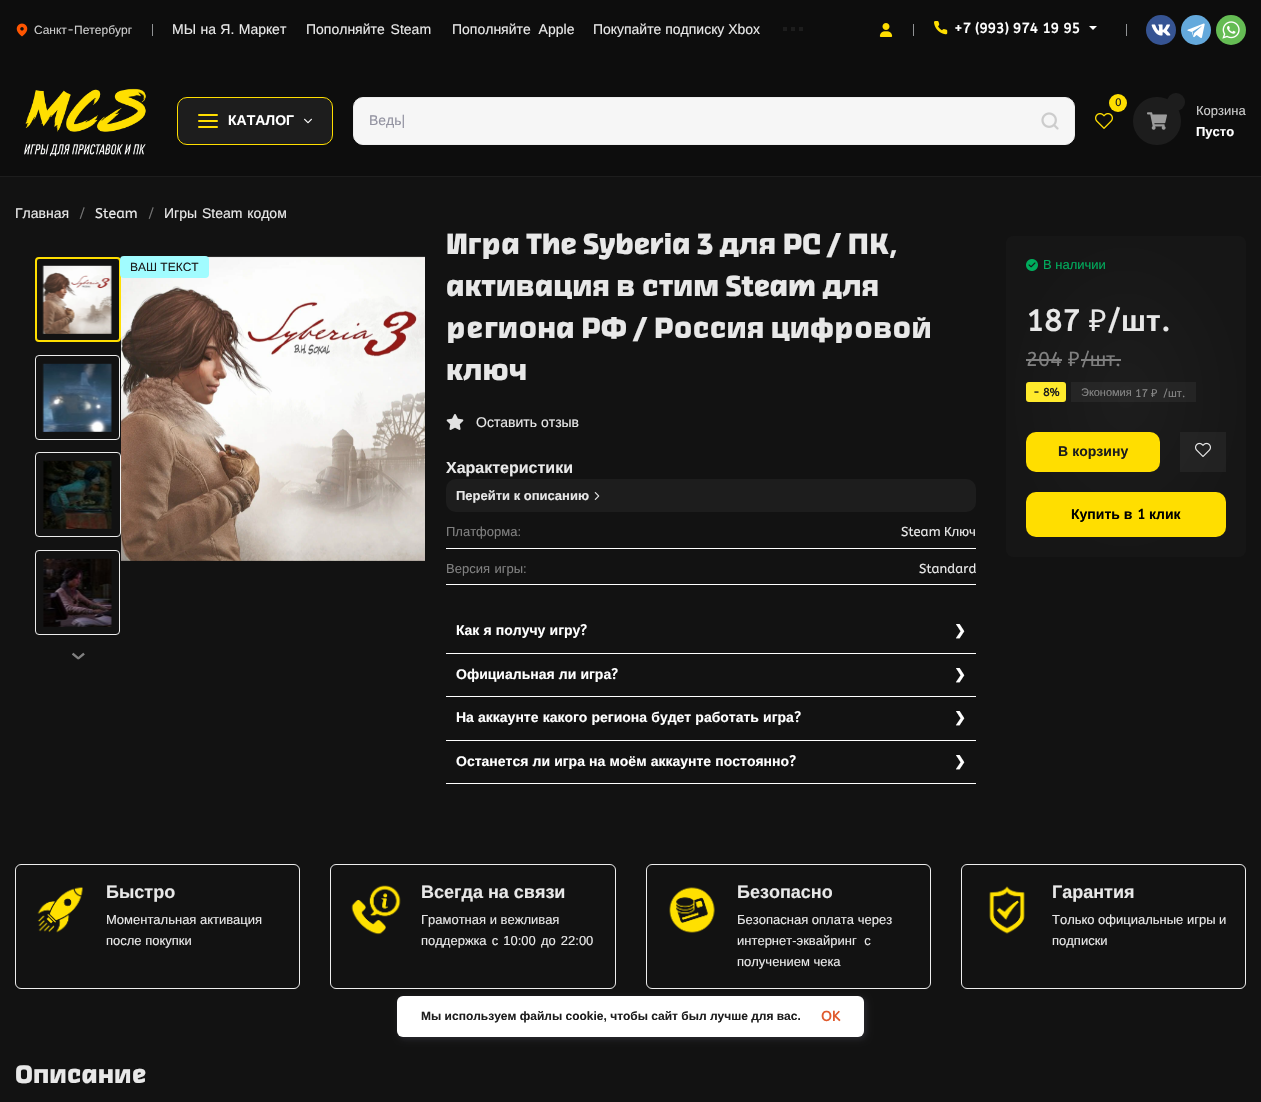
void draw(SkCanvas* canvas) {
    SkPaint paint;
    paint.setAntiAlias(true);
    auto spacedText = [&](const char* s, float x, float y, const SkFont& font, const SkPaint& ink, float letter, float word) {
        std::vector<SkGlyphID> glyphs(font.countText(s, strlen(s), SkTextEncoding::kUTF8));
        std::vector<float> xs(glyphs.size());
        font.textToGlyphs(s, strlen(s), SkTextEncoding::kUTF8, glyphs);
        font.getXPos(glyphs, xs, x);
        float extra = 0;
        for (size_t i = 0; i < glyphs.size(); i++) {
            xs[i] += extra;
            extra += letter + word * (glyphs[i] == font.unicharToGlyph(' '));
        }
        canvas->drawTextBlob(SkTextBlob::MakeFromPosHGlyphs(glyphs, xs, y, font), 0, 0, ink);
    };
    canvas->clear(0xFF121212);
    paint.setColor(0xFF0D0D0D);
    canvas->drawRect(SkRect::MakeXYWH(0, 0, 1261, 176), paint);
    canvas->drawImageRect(SkImages::DeferredFromEncodedData(SkData::MakeFromFileName("img1.png")), SkRect::MakeXYWH(16, 23, 12, 14), SkSamplingOptions());
    SkFont font1(fontMgr->matchFamilyStyle("Liberation Sans", SkFontStyle::Normal()), 12);
    font1.setSubpixel(true);
    paint.setColor(0xFFCCCCCC);
    canvas->drawString("Санкт", 34, 34, font1, paint);
    SkFont font2(fontMgr->matchFamilyStyle("ABeeZee", SkFontStyle::Normal()), 12);
    font2.setSubpixel(true);
    canvas->drawString("-", 67, 34, font2, paint);
    canvas->drawString("Петербург", 74, 34, font1, paint);
    paint.setColor(0xFF909294);
    canvas->drawRect(SkRect::MakeXYWH(152, 24, 1, 12), paint);
    SkFont font3(fontMgr->matchFamilyStyle("Liberation Sans", SkFontStyle::Normal()), 14);
    font3.setSubpixel(true);
    paint.setColor(0xFFE8E8E8);
    spacedText("МЫ на Я. Маркет", 172, 34, font3, paint, 0, 0.5f);
    spacedText("Пополняйте Steam", 306, 34, font3, paint, 0, 2);
    spacedText("Пополняйте Apple", 452, 34, font3, paint, 0, 4);
    canvas->drawString("Покупайте подписку Xbox", 593, 34, font3, paint);
    paint.setColor(0xFF1D1D1D);
    canvas->drawRect(SkRect::MakeXYWH(783, 27, 4, 4), paint);
    canvas->drawRect(SkRect::MakeXYWH(791, 27, 4, 4), paint);
    canvas->drawRect(SkRect::MakeXYWH(799, 27, 4, 4), paint);
    canvas->drawImageRect(SkImages::DeferredFromEncodedData(SkData::MakeFromFileName("img2.png")), SkRect::MakeXYWH(879, 23, 14, 14), SkSamplingOptions());
    paint.setColor(0xFF909294);
    canvas->drawRect(SkRect::MakeXYWH(913, 24, 1, 12), paint);
    canvas->drawImageRect(SkImages::DeferredFromEncodedData(SkData::MakeFromFileName("img3.png")), SkRect::MakeXYWH(934, 21, 14, 14), SkSamplingOptions());
    SkFont font4(fontMgr->matchFamilyStyle("ABeeZee", SkFontStyle::Bold()), 14);
    font4.setSubpixel(true);
    paint.setColor(0xFFFFFFFF);
    canvas->drawString("+7 (993) 974 19 95", 954, 33, font4, paint);
    canvas->drawPath(SkPathBuilder().moveTo(1089, 26).lineTo(1093, 30).lineTo(1097, 26).detach(), paint);
    paint.setColor(0xFF909294);
    canvas->drawRect(SkRect::MakeXYWH(1126, 24, 1, 12), paint);
    paint.setColor(0xFF365493);
    canvas->drawCircle(1161, 30, 15, paint);
    canvas->drawImageRect(SkImages::DeferredFromEncodedData(SkData::MakeFromFileName("img4.png")), SkRect::MakeXYWH(1151, 24, 20, 12), SkSamplingOptions());
    paint.setColor(0xFF64A9DC);
    canvas->drawCircle(1196, 30, 15, paint);
    canvas->drawImageRect(SkImages::DeferredFromEncodedData(SkData::MakeFromFileName("img5.png")), SkRect::MakeXYWH(1187, 23, 18, 15), SkSamplingOptions());
    paint.setColor(0xFF65BC54);
    canvas->drawCircle(1231, 30, 15, paint);
    canvas->drawImageRect(SkImages::DeferredFromEncodedData(SkData::MakeFromFileName("img6.png")), SkRect::MakeXYWH(1222, 21, 18, 18), SkSamplingOptions());
    paint.setColor(0xFF1D1D1D);
    canvas->drawRect(SkRect::MakeXYWH(0, 176, 1261, 1), paint);
    canvas->drawImageRect(SkImages::DeferredFromEncodedData(SkData::MakeFromFileName("img7.png")), SkRect::MakeXYWH(24, 88, 122, 69), SkSamplingOptions());
    paint.setColor(0xFFFFDE00);
    canvas->drawCircle(1118, 103, 9, paint);
    SkFont font5(fontMgr->matchFamilyStyle("ABeeZee", SkFontStyle::Normal()), 11);
    font5.setSubpixel(true);
    paint.setColor(0xFF1D1D1D);
    canvas->drawString("0", 1115, 106, font5, paint);
    canvas->drawImageRect(SkImages::DeferredFromEncodedData(SkData::MakeFromFileName("img8.png")), SkRect::MakeXYWH(1095, 113, 18, 16), SkSamplingOptions());
    canvas->drawRoundRect(SkRect::MakeXYWH(177.5f, 97.5f, 155, 47), 9.5f, 9.5f, paint);
    paint.setStyle(SkPaint::kStroke_Style);
    paint.setStrokeWidth(1);
    paint.setColor(0xFFFFDE00);
    canvas->drawRoundRect(SkRect::MakeXYWH(177.5f, 97.5f, 155, 47), 9.5f, 9.5f, paint);
    paint.setStyle(SkPaint::kFill_Style);
    canvas->drawRoundRect(SkRect::MakeXYWH(198, 120, 20, 2), 1, 1, paint);
    canvas->drawRoundRect(SkRect::MakeXYWH(198, 114, 20, 2), 1, 1, paint);
    canvas->drawRoundRect(SkRect::MakeXYWH(198, 126, 20, 2), 1, 1, paint);
    SkFont font6(fontMgr->matchFamilyStyle("Liberation Sans", SkFontStyle::Bold()), 14);
    font6.setSubpixel(true);
    paint.setColor(0xFFFFFFFF);
    canvas->drawString("КАТАЛОГ", 228, 125, font6, paint);
    canvas->drawImageRect(SkImages::DeferredFromEncodedData(SkData::MakeFromFileName("img9.png")), SkRect::MakeXYWH(304, 118, 8, 6), SkSamplingOptions());
    paint.setColor(0xFFF6F6F6);
    canvas->drawRoundRect(SkRect::MakeXYWH(353.5f, 97.5f, 721, 47), 9.5f, 9.5f, paint);
    paint.setStyle(SkPaint::kStroke_Style);
    paint.setColor(0xFFEEEEEE);
    canvas->drawRoundRect(SkRect::MakeXYWH(353.5f, 97.5f, 721, 47), 9.5f, 9.5f, paint);
    paint.setStyle(SkPaint::kFill_Style);
    paint.setColor(0xFF9393A1);
    canvas->drawString("Ведь|", 369, 125, font3, paint);
    canvas->drawImageRect(SkImages::DeferredFromEncodedData(SkData::MakeFromFileName("img10.png")), SkRect::MakeXYWH(1041, 112, 18, 18), SkSamplingOptions());
    paint.setColor(0xFF1D1D1D);
    canvas->drawCircle(1157, 121, 24, paint);
    canvas->drawCircle(1176, 102, 9, paint);
    canvas->drawImageRect(SkImages::DeferredFromEncodedData(SkData::MakeFromFileName("img11.png")), SkRect::MakeXYWH(1147, 112, 20, 18), SkSamplingOptions());
    SkFont font7(fontMgr->matchFamilyStyle("Liberation Sans", SkFontStyle::Normal()), 13);
    font7.setSubpixel(true);
    paint.setColor(0xFFCCCCCC);
    canvas->drawString("Корзина", 1196, 115, font7, paint);
    SkFont font8(fontMgr->matchFamilyStyle("Liberation Sans", SkFontStyle::Bold()), 13);
    font8.setSubpixel(true);
    paint.setColor(0xFFFFFFFF);
    canvas->drawString("Пусто", 1196, 136, font8, paint);
    paint.setColor(0xFFE8E8E8);
    canvas->drawString("Главная", 15, 218, font3, paint);
    SkFont font9(fontMgr->matchFamilyStyle("ABeeZee", SkFontStyle::Normal()), 14);
    font9.setSubpixel(true);
    paint.setColor(0xFF757575);
    canvas->drawString("/", 79, 218, font9, paint);
    paint.setColor(0xFFE8E8E8);
    canvas->drawString("Steam", 95, 218, font9, paint);
    paint.setColor(0xFF757575);
    canvas->drawString("/", 148, 218, font9, paint);
    paint.setColor(0xFFE8E8E8);
    spacedText("Игры Steam кодом", 164, 218, font3, paint, 0, 1);
    canvas->drawImageRect(SkImages::DeferredFromEncodedData(SkData::MakeFromFileName("img12.png")), SkRect::MakeXYWH(121, 256, 304, 305), SkSamplingOptions());
    paint.setStyle(SkPaint::kStroke_Style);
    paint.setStrokeWidth(2);
    paint.setColor(0xFFFFDE00);
    canvas->drawRoundRect(SkRect::MakeXYWH(36, 258, 84, 83), 3, 3, paint);
    paint.setStyle(SkPaint::kFill_Style);
    paint.setColor(0xFFA1FCFF);
    canvas->drawRoundRect(SkRect::MakeXYWH(120, 256, 89, 22), 4, 4, paint);
    paint.setColor(0xFF1D1D1D);
    canvas->drawString("ВАШ ТЕКСТ", 130, 271, font1, paint);
    canvas->drawImageRect(SkImages::DeferredFromEncodedData(SkData::MakeFromFileName("img13.png")), SkRect::MakeXYWH(42, 265, 70, 69), SkSamplingOptions());
    paint.setStyle(SkPaint::kStroke_Style);
    paint.setStrokeWidth(1);
    paint.setColor(0xFFECECEC);
    canvas->drawRoundRect(SkRect::MakeXYWH(35.5f, 355.5f, 84, 84), 3.5f, 3.5f, paint);
    canvas->drawImageRect(SkImages::DeferredFromEncodedData(SkData::MakeFromFileName("img14.png")), SkRect::MakeXYWH(42, 363, 70, 69), SkSamplingOptions());
    canvas->drawRoundRect(SkRect::MakeXYWH(35.5f, 452.5f, 85, 84), 3.5f, 3.5f, paint);
    canvas->drawImageRect(SkImages::DeferredFromEncodedData(SkData::MakeFromFileName("img15.png")), SkRect::MakeXYWH(43, 460, 69, 69), SkSamplingOptions());
    canvas->drawRoundRect(SkRect::MakeXYWH(35.5f, 550.5f, 84, 84), 3.5f, 3.5f, paint);
    canvas->drawImageRect(SkImages::DeferredFromEncodedData(SkData::MakeFromFileName("img16.png")), SkRect::MakeXYWH(43, 558, 69, 69), SkSamplingOptions());
    SkFont font10(fontMgr->matchFamilyStyle("ABeeZee", SkFontStyle::Normal()), 30);
    font10.setSubpixel(true);
    paint.setStyle(SkPaint::kFill_Style);
    paint.setColor(0xFF808080);
    canvas->save();
    canvas->rotate(90, 68, 650);
    canvas->drawString("›", 68, 650, font10, paint);
    canvas->restore();
    SkFont font11(fontMgr->matchFamilyStyle("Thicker", SkFontStyle::Bold()), 30);
    font11.setSubpixel(true);
    paint.setColor(0xFFE8E8E8);
    canvas->drawString("Игра The Syberia 3 для PC / ПК,", 446, 254, font11, paint);
    canvas->drawString("активация в стим Steam для", 446, 296, font11, paint);
    canvas->drawString("региона РФ / Россия цифровой", 446, 338, font11, paint);
    canvas->drawString("ключ", 446, 380, font11, paint);
    canvas->drawImageRect(SkImages::DeferredFromEncodedData(SkData::MakeFromFileName("img17.png")), SkRect::MakeXYWH(446, 414, 18, 16), SkSamplingOptions());
    canvas->drawString("Оставить отзыв", 476, 427, font3, paint);
    SkFont font12(fontMgr->matchFamilyStyle("Liberation Sans", SkFontStyle::Bold()), 16);
    font12.setSubpixel(true);
    canvas->drawString("Характеристики", 446, 473, font12, paint);
    paint.setColor(0xFF1D1D1D);
    canvas->drawRoundRect(SkRect::MakeXYWH(446, 479, 530, 33), 10, 10, paint);
    paint.setColor(0xFFE8E8E8);
    canvas->drawString("Перейти к описанию", 456, 500, font8, paint);
    canvas->drawImageRect(SkImages::DeferredFromEncodedData(SkData::MakeFromFileName("img18.png")), SkRect::MakeXYWH(594, 492, 6, 8), SkSamplingOptions());
    paint.setColor(0xFFFFFFFF);
    canvas->drawRect(SkRect::MakeXYWH(446, 548, 530, 1), paint);
    paint.setColor(0xFF808080);
    canvas->drawString("Платформа:", 446, 536, font7, paint);
    SkFont font13(fontMgr->matchFamilyStyle("ABeeZee", SkFontStyle::Normal()), 13);
    font13.setSubpixel(true);
    paint.setColor(0xFFE8E8E8);
    canvas->drawString("Steam", 901, 536, font13, paint);
    canvas->drawString("Ключ", 944, 536, font7, paint);
    paint.setColor(0xFFFFFFFF);
    canvas->drawRect(SkRect::MakeXYWH(446, 584, 530, 1), paint);
    paint.setColor(0xFF808080);
    spacedText("Версия игры:", 446, 573, font7, paint, 0, 1);
    paint.setColor(0xFFE8E8E8);
    canvas->drawString("Standard", 919, 573, font13, paint);
    paint.setColor(0xFFFFFFFF);
    canvas->drawRect(SkRect::MakeXYWH(446, 653, 530, 1), paint);
    spacedText("Как я получу игру", 456, 635, font6, paint, 0, 0.25f);
    canvas->drawString("?", 580, 635, font4, paint);
    SkFont font14(fontMgr->matchFamilyStyle("DejaVu Sans", SkFontStyle::Bold()), 14);
    font14.setSubpixel(true);
    canvas->drawString("❯", 954, 635, font14, paint);
    canvas->drawRect(SkRect::MakeXYWH(446, 696, 530, 1), paint);
    spacedText("Официальная ли игра", 456, 679, font6, paint, 0, 0.25f);
    canvas->drawString("?", 611, 679, font4, paint);
    canvas->drawString("❯", 954, 679, font14, paint);
    canvas->drawRect(SkRect::MakeXYWH(446, 740, 530, 1), paint);
    spacedText("На аккаунте какого региона будет работать игра", 456, 722, font6, paint, 0, 0.25f);
    canvas->drawString("?", 794, 722, font4, paint);
    canvas->drawString("❯", 954, 722, font14, paint);
    canvas->drawRect(SkRect::MakeXYWH(446, 783, 530, 1), paint);
    spacedText("Останется ли игра на моём аккаунте постоянно", 456, 766, font6, paint, 0, 0.25f);
    canvas->drawString("?", 789, 766, font4, paint);
    canvas->drawString("❯", 954, 766, font14, paint);
    {
        const SkColor colors[] = {0xFF1D1D1D, 0xFF161616};
        const float stops[] = {0, 1};
        SkMatrix m = SkMatrix::Translate(1126, 397).preScale(120, 161);
        paint.setShader(SkGradientShader::MakeRadial({0, 0}, 1, colors, stops, 2, SkTileMode::kClamp, 0, &m));
        paint.setAlpha(255);
    }
    canvas->drawRoundRect(SkRect::MakeXYWH(1006, 236, 240, 321), 8, 8, paint);
    canvas->drawImageRect(SkImages::DeferredFromEncodedData(SkData::MakeFromFileName("img19.png")), SkRect::MakeXYWH(1026, 259, 12, 12), SkSamplingOptions());
    paint.setShader(nullptr);
    paint.setColor(0xFF00AD5D);
    canvas->drawString("В наличии", 1043, 269, font7, paint);
    SkFont font15(fontMgr->matchFamilyStyle("ABeeZee", SkFontStyle::Bold()), 30);
    font15.setSubpixel(true);
    paint.setColor(0xFFE8E8E8);
    canvas->drawString("187", 1026, 331, font15, paint);
    SkFont font16(fontMgr->matchFamilyStyle("Noto Sans", SkFontStyle::Normal()), 30);
    font16.setSubpixel(true);
    spacedText("₽", 1089, 331, font16, paint, 1, 0);
    canvas->drawString("/", 1107, 331, font15, paint);
    SkFont font17(fontMgr->matchFamilyStyle("Liberation Sans", SkFontStyle::Bold()), 30);
    font17.setSubpixel(true);
    canvas->drawString("шт", 1121, 331, font17, paint);
    canvas->drawString(".", 1161, 331, font15, paint);
    SkFont font18(fontMgr->matchFamilyStyle("ABeeZee", SkFontStyle::Normal()), 20);
    font18.setSubpixel(true);
    paint.setColor(0xFF808080);
    canvas->drawString("204", 1026, 366, font18, paint);
    canvas->drawRect(SkRect::MakeXYWH(1026, 359, 36, 2), paint);
    SkFont font19(fontMgr->matchFamilyStyle("Noto Sans", SkFontStyle::Normal()), 20);
    font19.setSubpixel(true);
    spacedText("₽", 1068, 366, font19, paint, 1, 0);
    canvas->drawString("/", 1081, 366, font18, paint);
    canvas->drawRect(SkRect::MakeXYWH(1081, 359, 9, 2), paint);
    SkFont font20(fontMgr->matchFamilyStyle("Liberation Sans", SkFontStyle::Normal()), 20);
    font20.setSubpixel(true);
    canvas->drawString("шт", 1090, 366, font20, paint);
    canvas->drawRect(SkRect::MakeXYWH(1090, 359, 31, 2), paint);
    canvas->drawString(".", 1115, 366, font18, paint);
    paint.setColor(0xFFFFEA2C);
    canvas->drawRoundRect(SkRect::MakeXYWH(1026, 382, 40, 20), 3, 3, paint);
    SkFont font21(fontMgr->matchFamilyStyle("ABeeZee", SkFontStyle::Bold()), 11);
    font21.setSubpixel(true);
    paint.setColor(0xFF1D1D1D);
    canvas->drawString("- 8%", 1033, 396, font21, paint);
    paint.setColor(0x0DE8E8E8);
    canvas->drawRect(SkRect::MakeXYWH(1071, 382, 125, 20), paint);
    SkFont font22(fontMgr->matchFamilyStyle("Liberation Sans", SkFontStyle::Normal()), 11);
    font22.setSubpixel(true);
    paint.setColor(0xFF878787);
    canvas->drawString("Экономия", 1081, 396, font22, paint);
    canvas->drawString("17", 1135, 397, font5, paint);
    SkFont font23(fontMgr->matchFamilyStyle("Noto Sans", SkFontStyle::Normal()), 11);
    font23.setSubpixel(true);
    spacedText("₽", 1151, 397, font23, paint, 1, 0);
    canvas->drawString("/", 1163, 397, font5, paint);
    canvas->drawString("шт", 1168, 397, font22, paint);
    canvas->drawString(".", 1182, 397, font5, paint);
    paint.setColor(0xFFFFDE00);
    canvas->drawRoundRect(SkRect::MakeXYWH(1026, 432, 134, 40), 10, 10, paint);
    paint.setColor(0xFF1D1D1D);
    spacedText("В корзину", 1058, 456, font6, paint, 0, 0.25f);
    paint.setColor(0x0DE8E8E8);
    canvas->drawRect(SkRect::MakeXYWH(1180, 432, 46, 40), paint);
    canvas->drawImageRect(SkImages::DeferredFromEncodedData(SkData::MakeFromFileName("img20.png")), SkRect::MakeXYWH(1195, 442, 16, 15), SkSamplingOptions());
    paint.setColor(0xFFFFDE00);
    canvas->drawRoundRect(SkRect::MakeXYWH(1026, 492, 200, 45), 10, 10, paint);
    paint.setColor(0xFF000000);
    canvas->drawString("Купить в", 1071, 519, font6, paint);
    canvas->drawString("1", 1137, 519, font4, paint);
    canvas->drawString("клик", 1149, 519, font6, paint);
    paint.setStyle(SkPaint::kStroke_Style);
    paint.setColor(0xFFEEEEEE);
    canvas->drawRoundRect(SkRect::MakeXYWH(15.5f, 864.5f, 284, 124), 5.5f, 5.5f, paint);
    canvas->drawImageRect(SkImages::DeferredFromEncodedData(SkData::MakeFromFileName("img21.png")), SkRect::MakeXYWH(37, 887, 46, 46), SkSamplingOptions());
    SkFont font24(fontMgr->matchFamilyStyle("Liberation Sans", SkFontStyle::Bold()), 18);
    font24.setSubpixel(true);
    paint.setStyle(SkPaint::kFill_Style);
    paint.setColor(0xFFE8E8E8);
    canvas->drawString("Быстро", 106, 898, font24, paint);
    canvas->drawString("Моментальная активация", 106, 924, font7, paint);
    canvas->drawString("после покупки", 106, 945, font7, paint);
    paint.setStyle(SkPaint::kStroke_Style);
    paint.setColor(0xFFEEEEEE);
    canvas->drawRoundRect(SkRect::MakeXYWH(330.5f, 864.5f, 285, 124), 5.5f, 5.5f, paint);
    canvas->drawImageRect(SkImages::DeferredFromEncodedData(SkData::MakeFromFileName("img22.png")), SkRect::MakeXYWH(351, 885, 50, 50), SkSamplingOptions());
    paint.setStyle(SkPaint::kFill_Style);
    paint.setColor(0xFFE8E8E8);
    canvas->drawString("Всегда на связи", 421, 898, font24, paint);
    canvas->drawString("Грамотная и вежливая", 421, 924, font7, paint);
    spacedText("поддержка с 10:00 до 22:00", 421, 945, font7, paint, 0, 1.5f);
    paint.setStyle(SkPaint::kStroke_Style);
    paint.setColor(0xFFEEEEEE);
    canvas->drawRoundRect(SkRect::MakeXYWH(646.5f, 864.5f, 284, 124), 5.5f, 5.5f, paint);
    canvas->drawImageRect(SkImages::DeferredFromEncodedData(SkData::MakeFromFileName("img23.png")), SkRect::MakeXYWH(669, 887, 46, 46), SkSamplingOptions());
    paint.setStyle(SkPaint::kFill_Style);
    paint.setColor(0xFFE8E8E8);
    canvas->drawString("Безопасно", 737, 898, font24, paint);
    canvas->drawString("Безопасная оплата через", 737, 924, font7, paint);
    spacedText("интернет-эквайринг с", 737, 945, font7, paint, 0, 4);
    canvas->drawString("получением чека", 737, 966, font7, paint);
    paint.setStyle(SkPaint::kStroke_Style);
    paint.setColor(0xFFEEEEEE);
    canvas->drawRoundRect(SkRect::MakeXYWH(961.5f, 864.5f, 284, 124), 5.5f, 5.5f, paint);
    canvas->drawImageRect(SkImages::DeferredFromEncodedData(SkData::MakeFromFileName("img24.png")), SkRect::MakeXYWH(989, 886, 36, 48), SkSamplingOptions());
    paint.setStyle(SkPaint::kFill_Style);
    paint.setColor(0xFFE8E8E8);
    canvas->drawString("Гарантия", 1052, 898, font24, paint);
    canvas->drawString("Только официальные игры и", 1052, 924, font7, paint);
    canvas->drawString("подписки", 1052, 945, font7, paint);
    SkFont font25(fontMgr->matchFamilyStyle("Thicker", SkFontStyle::Bold()), 26);
    font25.setSubpixel(true);
    canvas->drawString("Описание", 15, 1083, font25, paint);
    paint.setColor(0x4D646478);
    paint.setMaskFilter(SkMaskFilter::MakeBlur(kNormal_SkBlurStyle, 3));
    canvas->drawRoundRect(SkRect::MakeXYWH(399, 998, 467, 41), 6, 6, paint);
    paint.setMaskFilter(nullptr);
    paint.setColor(0xFFFFFFFF);
    canvas->drawRoundRect(SkRect::MakeXYWH(397, 996, 467, 41), 6, 6, paint);
    SkFont font26(fontMgr->matchFamilyStyle("Liberation Sans", SkFontStyle::Bold()), 12);
    font26.setSubpixel(true);
    paint.setColor(0xFF1D1D1D);
    canvas->drawString("Мы используем файлы cookie, чтобы сайт был лучше для вас.", 421, 1020, font26, paint);
    paint.setColor(0xFFE05A2D);
    canvas->drawString("OK", 821, 1021, font4, paint);
}
